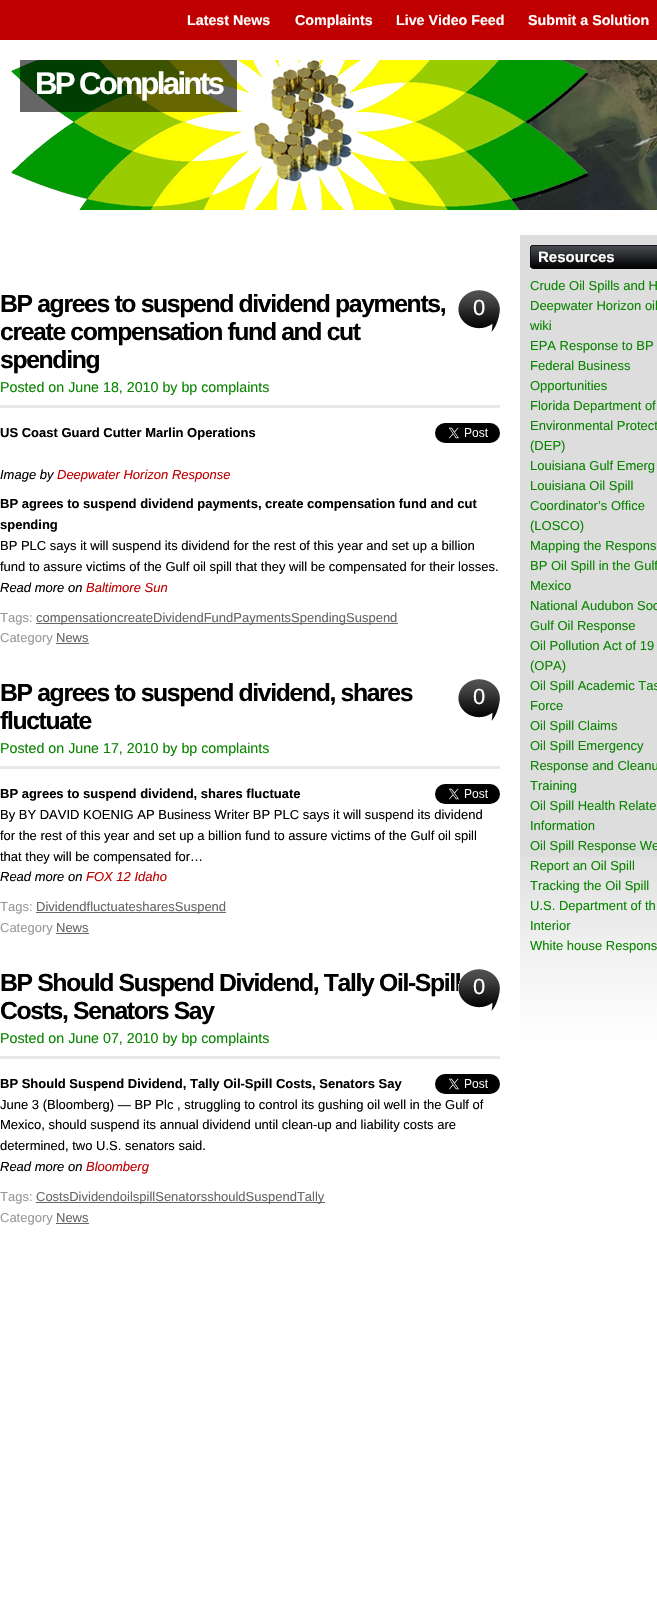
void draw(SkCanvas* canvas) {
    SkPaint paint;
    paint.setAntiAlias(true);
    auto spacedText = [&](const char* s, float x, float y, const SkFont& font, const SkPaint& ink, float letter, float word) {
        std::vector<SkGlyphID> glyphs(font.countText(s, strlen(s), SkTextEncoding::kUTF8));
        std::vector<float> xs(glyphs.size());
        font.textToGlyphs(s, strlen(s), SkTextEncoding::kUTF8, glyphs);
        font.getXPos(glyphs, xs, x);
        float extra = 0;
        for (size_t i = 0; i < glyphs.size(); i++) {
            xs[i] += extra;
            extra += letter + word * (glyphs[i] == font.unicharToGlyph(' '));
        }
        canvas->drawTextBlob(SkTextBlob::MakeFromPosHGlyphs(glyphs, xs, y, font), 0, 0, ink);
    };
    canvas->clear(0xFFFFFFFF);
    paint.setColor(0xFFC00000);
    canvas->drawRect(SkRect::MakeXYWH(0, 0, 657, 40), paint);
    SkFont font1(fontMgr->matchFamilyStyle("Liberation Sans", SkFontStyle::Bold()), 14.25f);
    font1.setSubpixel(true);
    paint.setColor(0xFFFFFFFF);
    canvas->drawString("Latest News", 187, 25, font1, paint);
    canvas->drawString("Complaints", 295, 25, font1, paint);
    canvas->drawString("Live Video Feed", 396, 25, font1, paint);
    canvas->drawString("Submit a Solution", 528, 25, font1, paint);
    canvas->drawImageRect(SkImages::DeferredFromEncodedData(SkData::MakeFromFileName("img1.png")), SkRect::MakeXYWH(0, 60, 657, 150), SkSamplingOptions());
    paint.setColor(0x99000000);
    canvas->drawRect(SkRect::MakeXYWH(20, 60, 217, 52), paint);
    SkFont font2(fontMgr->matchFamilyStyle("Liberation Sans", SkFontStyle::Bold()), 31.25f);
    font2.setSubpixel(true);
    paint.setColor(0xFFFFFFFF);
    spacedText("BP Complaints", 35, 94, font2, paint, -2.7f, 0);
    SkFont font3(fontMgr->matchFamilyStyle("Liberation Sans", SkFontStyle::Bold()), 24.75f);
    font3.setSubpixel(true);
    paint.setColor(0xFF000000);
    spacedText("BP agrees to suspend dividend payments,", 0, 312, font3, paint, -1.35f, 0);
    canvas->drawImageRect(SkImages::DeferredFromEncodedData(SkData::MakeFromFileName("img2.png")), SkRect::MakeXYWH(458, 290, 42, 42), SkSamplingOptions());
    SkFont font4(fontMgr->matchFamilyStyle("Liberation Sans", SkFontStyle::Normal()), 22);
    font4.setSubpixel(true);
    paint.setColor(0xFFFFFFFF);
    spacedText("0", 473, 315, font4, paint, -1.35f, 0);
    paint.setColor(0xFF000000);
    spacedText("create compensation fund and cut", 0, 340, font3, paint, -1.35f, 0);
    spacedText("spending", 0, 368, font3, paint, -1.35f, 0);
    paint.setColor(0xFFE8E8E8);
    canvas->drawRect(SkRect::MakeXYWH(0, 405, 500, 3), paint);
    SkFont font5(fontMgr->matchFamilyStyle("Liberation Sans", SkFontStyle::Normal()), 14.25f);
    font5.setSubpixel(true);
    paint.setColor(0xFF098400);
    canvas->drawString("Posted on June 18, 2010 by bp complaints", 0, 392, font5, paint);
    SkFont font6(fontMgr->matchFamilyStyle("Liberation Sans", SkFontStyle::Bold()), 13);
    font6.setSubpixel(true);
    paint.setColor(0xFF000000);
    canvas->drawString("US Coast Guard Cutter Marlin Operations", 0, 437, font6, paint);
    SkFont font7(fontMgr->matchFamilyStyle("Liberation Sans", SkFontStyle::Italic()), 13);
    font7.setSubpixel(true);
    canvas->drawString("Image by", 0, 479, font7, paint);
    paint.setColor(0xFFC00000);
    canvas->drawString("Deepwater Horizon Response", 57, 479, font7, paint);
    canvas->drawImageRect(SkImages::DeferredFromEncodedData(SkData::MakeFromFileName("img3.png")), SkRect::MakeXYWH(435, 423, 65, 20), SkSamplingOptions());
    paint.setColor(0xFF000000);
    canvas->drawString("BP agrees to suspend dividend payments, create compensation fund and cut", 0, 508, font6, paint);
    canvas->drawString("spending", 0, 529, font6, paint);
    SkFont font8(fontMgr->matchFamilyStyle("Liberation Sans", SkFontStyle::Normal()), 13);
    font8.setSubpixel(true);
    canvas->drawString("BP PLC says it will suspend its dividend for the rest of this year and set up a billion", 0, 550, font8, paint);
    canvas->drawString("fund to assure victims of the Gulf oil spill that they will be compensated for their losses.", 0, 571, font8, paint);
    canvas->drawString("Read more on", 0, 592, font7, paint);
    paint.setColor(0xFFC00000);
    canvas->drawString("Baltimore Sun", 86, 592, font7, paint);
    paint.setColor(0xFF999999);
    canvas->drawString("Tags:", 0, 622, font8, paint);
    paint.setColor(0xFF666666);
    canvas->drawRect(SkRect::MakeXYWH(36, 623, 362, 1), paint);
    canvas->drawString("compensationcreateDividendFundPaymentsSpendingSuspend", 36, 622, font8, paint);
    paint.setColor(0xFF999999);
    canvas->drawString("Category", 0, 642, font8, paint);
    paint.setColor(0xFF666666);
    canvas->drawString("News", 56, 642, font8, paint);
    canvas->drawRect(SkRect::MakeXYWH(56, 643, 33, 1), paint);
    paint.setColor(0xFF000000);
    spacedText("BP agrees to suspend dividend, shares", 0, 701, font3, paint, -1.35f, 0);
    canvas->drawImageRect(SkImages::DeferredFromEncodedData(SkData::MakeFromFileName("img2.png")), SkRect::MakeXYWH(458, 679, 42, 42), SkSamplingOptions());
    paint.setColor(0xFFFFFFFF);
    spacedText("0", 473, 704, font4, paint, -1.35f, 0);
    paint.setColor(0xFF000000);
    spacedText("fluctuate", 0, 729, font3, paint, -1.35f, 0);
    paint.setColor(0xFFE8E8E8);
    canvas->drawRect(SkRect::MakeXYWH(0, 766, 500, 3), paint);
    paint.setColor(0xFF098400);
    canvas->drawString("Posted on June 17, 2010 by bp complaints", 0, 753, font5, paint);
    canvas->drawImageRect(SkImages::DeferredFromEncodedData(SkData::MakeFromFileName("img3.png")), SkRect::MakeXYWH(435, 784, 65, 20), SkSamplingOptions());
    paint.setColor(0xFF000000);
    canvas->drawString("BP agrees to suspend dividend, shares fluctuate", 0, 798, font6, paint);
    canvas->drawString("By BY DAVID KOENIG AP Business Writer BP PLC says it will suspend its dividend", 0, 819, font8, paint);
    canvas->drawString("for the rest of this year and set up a billion fund to assure victims of the Gulf oil spill", 0, 840, font8, paint);
    canvas->drawString("that they will be compensated for…", 0, 861, font8, paint);
    canvas->drawString("Read more on", 0, 881, font7, paint);
    paint.setColor(0xFFC00000);
    canvas->drawString("FOX 12 Idaho", 86, 881, font7, paint);
    paint.setColor(0xFF999999);
    canvas->drawString("Tags:", 0, 911, font8, paint);
    paint.setColor(0xFF666666);
    canvas->drawRect(SkRect::MakeXYWH(36, 912, 190, 1), paint);
    canvas->drawString("DividendfluctuatesharesSuspend", 36, 911, font8, paint);
    paint.setColor(0xFF999999);
    canvas->drawString("Category", 0, 932, font8, paint);
    paint.setColor(0xFF666666);
    canvas->drawString("News", 56, 932, font8, paint);
    canvas->drawRect(SkRect::MakeXYWH(56, 933, 33, 1), paint);
    paint.setColor(0xFF000000);
    spacedText("BP Should Suspend Dividend, Tally Oil-Spill", 0, 991, font3, paint, -1.35f, 0);
    canvas->drawImageRect(SkImages::DeferredFromEncodedData(SkData::MakeFromFileName("img4.png")), SkRect::MakeXYWH(458, 969, 42, 42), SkSamplingOptions());
    paint.setColor(0xFFFFFFFF);
    spacedText("0", 473, 994, font4, paint, -1.35f, 0);
    paint.setColor(0xFF000000);
    spacedText("Costs, Senators Say", 0, 1019, font3, paint, -1.35f, 0);
    paint.setColor(0xFFE8E8E8);
    canvas->drawRect(SkRect::MakeXYWH(0, 1056, 500, 3), paint);
    paint.setColor(0xFF098400);
    canvas->drawString("Posted on June 07, 2010 by bp complaints", 0, 1043, font5, paint);
    canvas->drawImageRect(SkImages::DeferredFromEncodedData(SkData::MakeFromFileName("img3.png")), SkRect::MakeXYWH(435, 1074, 65, 20), SkSamplingOptions());
    paint.setColor(0xFF000000);
    canvas->drawString("BP Should Suspend Dividend, Tally Oil-Spill Costs, Senators Say", 0, 1088, font6, paint);
    canvas->drawString("June 3 (Bloomberg) — BP Plc , struggling to control its gushing oil well in the Gulf of", 0, 1109, font8, paint);
    canvas->drawString("Mexico, should suspend its annual dividend until clean-up and liability costs are", 0, 1129, font8, paint);
    canvas->drawString("determined, two U.S. senators said.", 0, 1150, font8, paint);
    canvas->drawString("Read more on", 0, 1171, font7, paint);
    paint.setColor(0xFFC00000);
    canvas->drawString("Bloomberg", 86, 1171, font7, paint);
    paint.setColor(0xFF999999);
    canvas->drawString("Tags:", 0, 1201, font8, paint);
    paint.setColor(0xFF666666);
    canvas->drawRect(SkRect::MakeXYWH(36, 1202, 289, 1), paint);
    canvas->drawString("CostsDividendoilspillSenatorsshouldSuspendTally", 36, 1201, font8, paint);
    paint.setColor(0xFF999999);
    canvas->drawString("Category", 0, 1222, font8, paint);
    paint.setColor(0xFF666666);
    canvas->drawString("News", 56, 1222, font8, paint);
    canvas->drawRect(SkRect::MakeXYWH(56, 1223, 33, 1), paint);
    paint.setColor(0xFFDDDDDD);
    canvas->drawRect(SkRect::MakeXYWH(520, 235, 137, 622), paint);
    canvas->drawImageRect(SkImages::DeferredFromEncodedData(SkData::MakeFromFileName("img5.png")), SkRect::MakeXYWH(520, 857, 137, 219), SkSamplingOptions());
    canvas->drawImageRect(SkImages::DeferredFromEncodedData(SkData::MakeFromFileName("img6.png")), SkRect::MakeXYWH(530, 245, 127, 24), SkSamplingOptions());
    SkFont font9(fontMgr->matchFamilyStyle("Liberation Sans", SkFontStyle::Bold()), 15);
    font9.setSubpixel(true);
    paint.setColor(0xFFFFFFFF);
    canvas->drawString("Resources", 538, 262, font9, paint);
    paint.setColor(0xFF098400);
    canvas->drawString("Crude Oil Spills and H", 530, 290, font8, paint);
    canvas->drawString("Deepwater Horizon oil", 530, 310, font8, paint);
    canvas->drawString("wiki", 530, 330, font8, paint);
    canvas->drawString("EPA Response to BP", 530, 350, font8, paint);
    canvas->drawString("Federal Business", 530, 370, font8, paint);
    canvas->drawString("Opportunities", 530, 390, font8, paint);
    canvas->drawString("Florida Department of", 530, 410, font8, paint);
    canvas->drawString("Environmental Protect", 530, 430, font8, paint);
    canvas->drawString("(DEP)", 530, 450, font8, paint);
    canvas->drawString("Louisiana Gulf Emerg", 530, 470, font8, paint);
    canvas->drawString("Louisiana Oil Spill", 530, 490, font8, paint);
    canvas->drawString("Coordinator’s Office", 530, 510, font8, paint);
    canvas->drawString("(LOSCO)", 530, 530, font8, paint);
    canvas->drawString("Mapping the Respons", 530, 550, font8, paint);
    canvas->drawString("BP Oil Spill in the Gulf", 530, 570, font8, paint);
    canvas->drawString("Mexico", 530, 590, font8, paint);
    canvas->drawString("National Audubon Soc", 530, 610, font8, paint);
    canvas->drawString("Gulf Oil Response", 530, 630, font8, paint);
    canvas->drawString("Oil Pollution Act of 19", 530, 650, font8, paint);
    canvas->drawString("(OPA)", 530, 670, font8, paint);
    canvas->drawString("Oil Spill Academic Tas", 530, 690, font8, paint);
    canvas->drawString("Force", 530, 710, font8, paint);
    canvas->drawString("Oil Spill Claims", 530, 730, font8, paint);
    canvas->drawString("Oil Spill Emergency", 530, 750, font8, paint);
    canvas->drawString("Response and Cleanu", 530, 770, font8, paint);
    canvas->drawString("Training", 530, 790, font8, paint);
    canvas->drawString("Oil Spill Health Relate", 530, 810, font8, paint);
    canvas->drawString("Information", 530, 830, font8, paint);
    canvas->drawString("Oil Spill Response We", 530, 850, font8, paint);
    canvas->drawString("Report an Oil Spill", 530, 870, font8, paint);
    canvas->drawString("Tracking the Oil Spill", 530, 890, font8, paint);
    canvas->drawString("U.S. Department of th", 530, 910, font8, paint);
    canvas->drawString("Interior", 530, 930, font8, paint);
    canvas->drawString("White house Respons", 530, 950, font8, paint);
}
